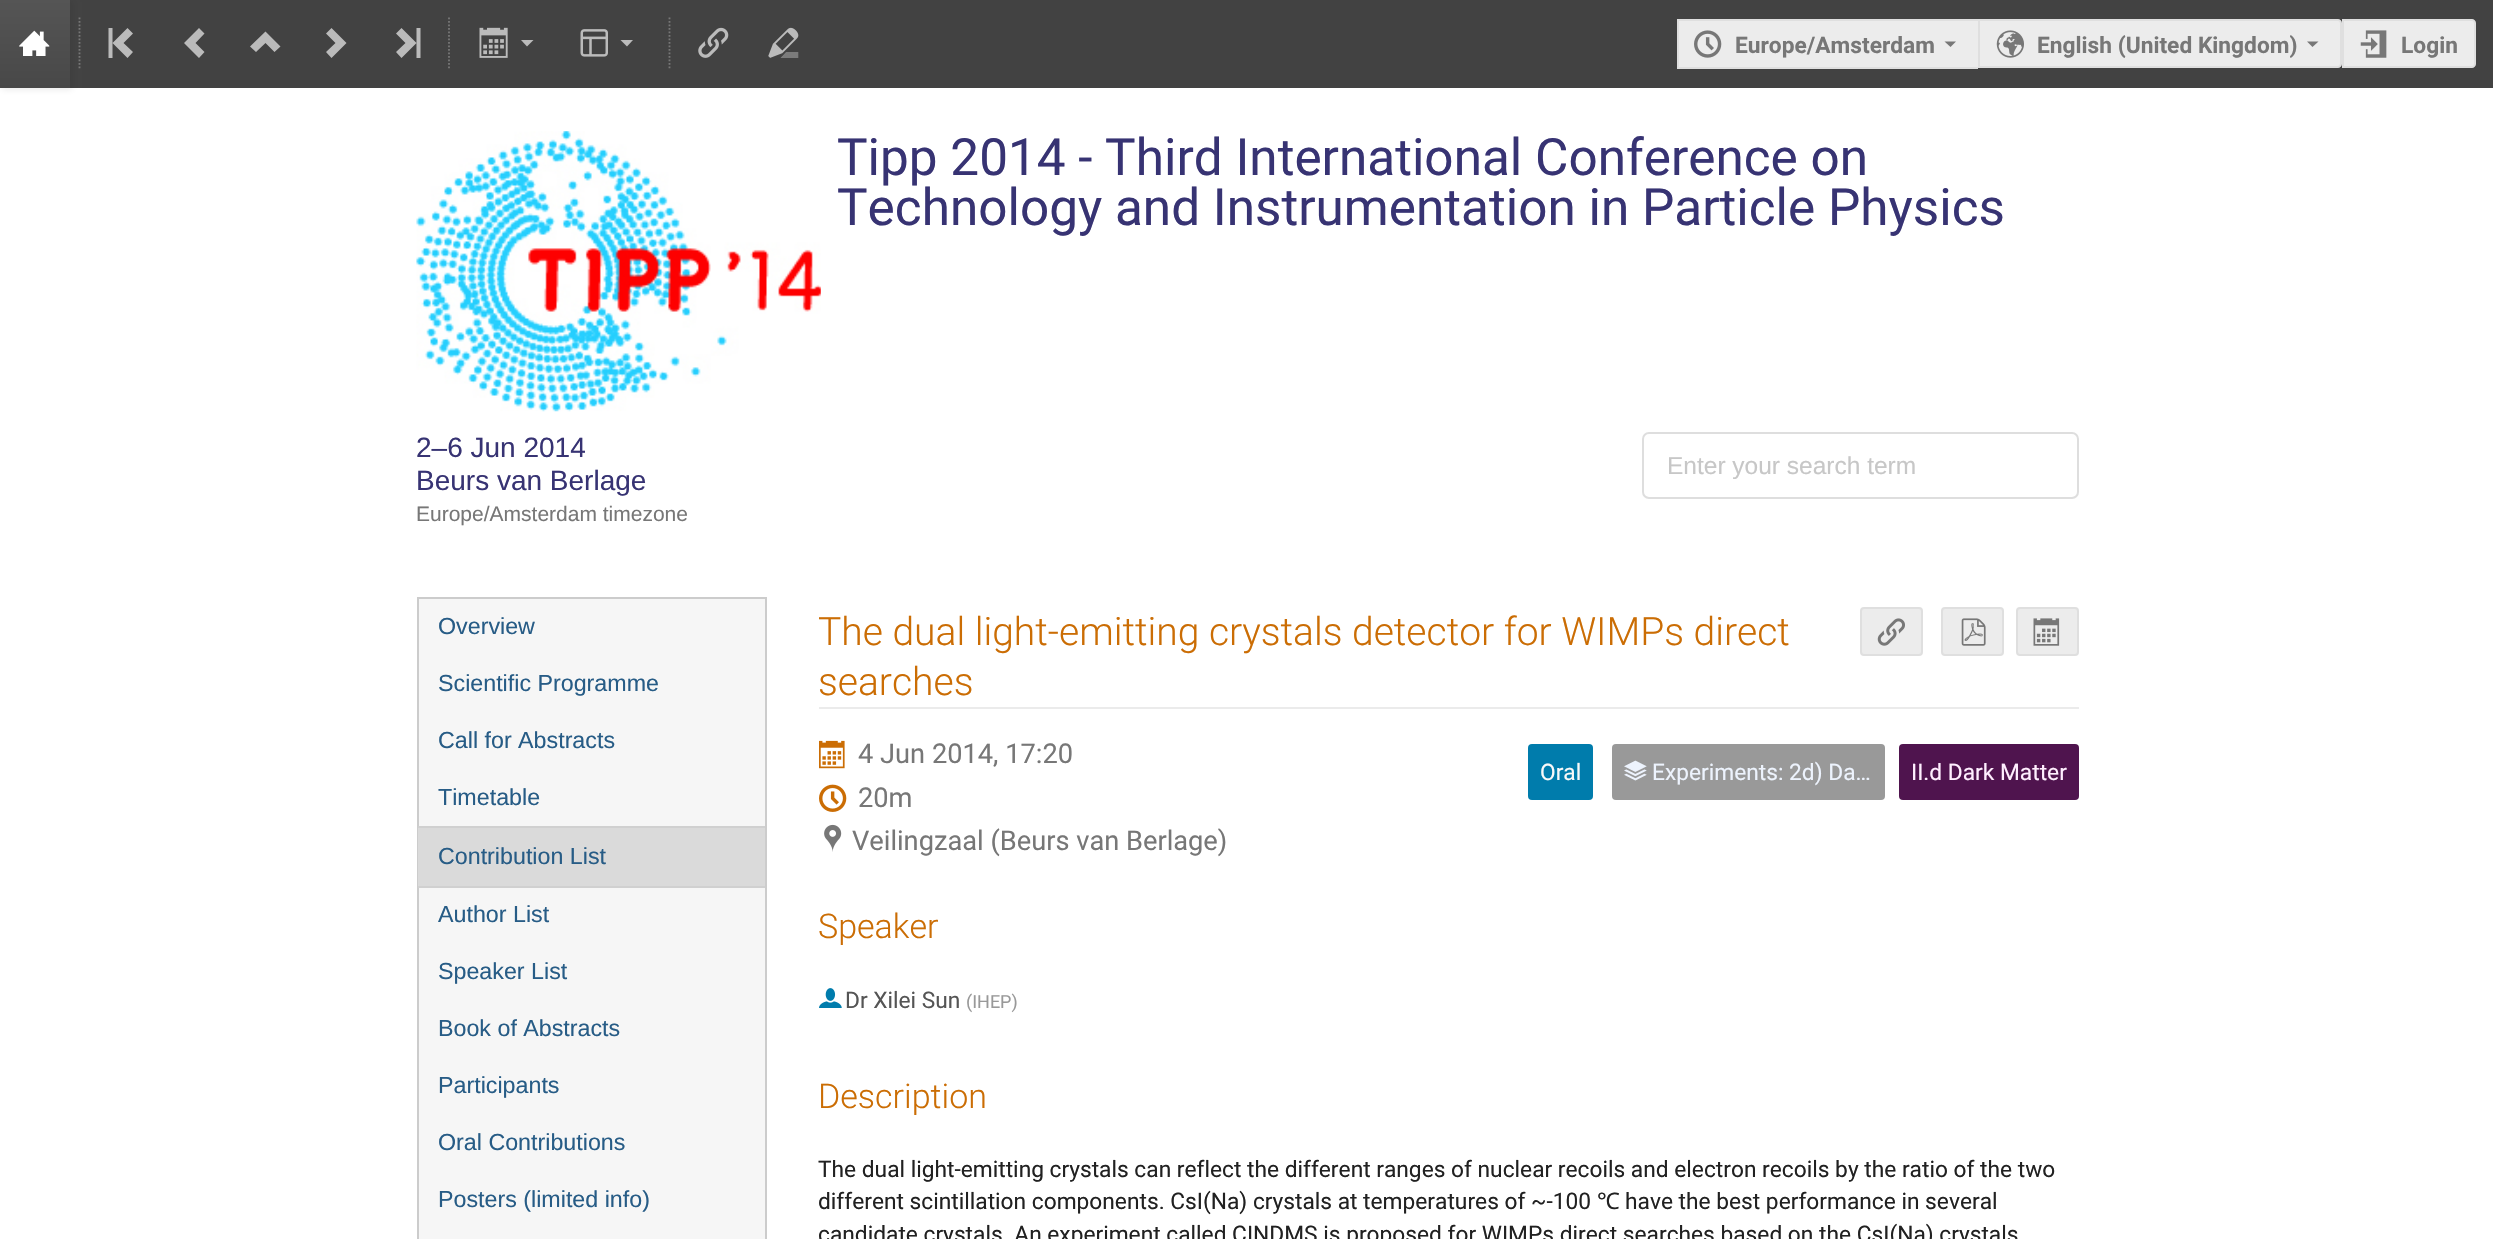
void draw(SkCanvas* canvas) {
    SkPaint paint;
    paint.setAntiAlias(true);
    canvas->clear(0xFFFFFFFF);
    paint.setColor(0xFF424242);
    canvas->drawRect(SkRect::MakeXYWH(70, 0, 2423, 88), paint);
    paint.setColor(0x1A141414);
    paint.setMaskFilter(SkMaskFilter::MakeBlur(kNormal_SkBlurStyle, 3.5f));
    canvas->drawRect(SkRect::MakeXYWH(2, 2, 70, 87), paint);
    paint.setMaskFilter(nullptr);
    {
        const SkColor colors[] = {0xFF555555, 0xFF484848};
        const float stops[] = {0, 1};
        const SkPoint ends[] = {{35, 0}, {35, 88}};
        paint.setShader(SkGradientShader::MakeLinear(ends, colors, stops, 2, SkTileMode::kClamp));
        paint.setAlpha(255);
    }
    canvas->drawRect(SkRect::MakeXYWH(0, 0, 70, 88), paint);
    canvas->drawImageRect(SkImages::DeferredFromEncodedData(SkData::MakeFromFileName("img1.png")), SkRect::MakeXYWH(19, 30, 31, 26), SkSamplingOptions());
    paint.setStyle(SkPaint::kStroke_Style);
    paint.setStrokeWidth(1.8f);
    paint.setShader(nullptr);
    paint.setColor(0xFF777777);
    paint.setPathEffect(SkDashPathEffect::Make({{1.75f, 1.75f}}, 0));
    canvas->drawPath(SkPathBuilder().moveTo(79.5f, 17.5f).lineTo(79.5f, 70).detach(), paint);
    paint.setPathEffect(nullptr);
    paint.setStyle(SkPaint::kFill_Style);
    paint.setColor(0xFFBBBBBB);
    canvas->drawPath(SkPathBuilder().moveTo(133, 33.5f).lineTo(127.5f, 28).lineTo(112.5f, 43).lineTo(127.5f, 58).lineTo(133, 52).lineTo(123.5f, 43).close().moveTo(108.5f, 28).lineTo(108.5f, 58).lineTo(112.5f, 58).lineTo(112.5f, 28).close().detach(), paint);
    canvas->drawPath(SkPathBuilder().moveTo(199, 58).lineTo(204.5f, 52).lineTo(195.5f, 43).lineTo(204.5f, 33.5f).lineTo(199, 28).lineTo(184, 43).close().detach(), paint);
    canvas->drawPath(SkPathBuilder().moveTo(250, 46.5f).lineTo(256, 52).lineTo(265.5f, 43).lineTo(274.5f, 52).lineTo(280.5f, 46.5f).lineTo(265.5f, 31.5f).close().detach(), paint);
    canvas->drawPath(SkPathBuilder().moveTo(331.5f, 28).lineTo(326, 33.5f).lineTo(335.5f, 43).lineTo(326, 52).lineTo(331.5f, 58).lineTo(346.5f, 43).close().detach(), paint);
    canvas->drawPath(SkPathBuilder().moveTo(396, 52).lineTo(401.5f, 58).lineTo(416.5f, 43).lineTo(401.5f, 28).lineTo(396, 33.5f).lineTo(405.5f, 43).close().moveTo(420.5f, 58).lineTo(420.5f, 28).lineTo(416.5f, 28).lineTo(416.5f, 58).close().detach(), paint);
    paint.setStyle(SkPaint::kStroke_Style);
    paint.setColor(0xFF777777);
    paint.setPathEffect(SkDashPathEffect::Make({{1.75f, 1.75f}}, 0));
    canvas->drawPath(SkPathBuilder().moveTo(449, 17.5f).lineTo(449, 70).detach(), paint);
    paint.setPathEffect(nullptr);
    canvas->drawImageRect(SkImages::DeferredFromEncodedData(SkData::MakeFromFileName("img2.png")), SkRect::MakeXYWH(479, 27, 29, 31), SkSamplingOptions());
    paint.setStyle(SkPaint::kFill_Style);
    paint.setColor(0xFFBBBBBB);
    canvas->drawPath(SkPathBuilder().moveTo(521, 40).lineTo(527, 46.5f).lineTo(533.5f, 40).close().detach(), paint);
    canvas->drawImageRect(SkImages::DeferredFromEncodedData(SkData::MakeFromFileName("img3.png")), SkRect::MakeXYWH(580, 29, 28, 28), SkSamplingOptions());
    canvas->drawPath(SkPathBuilder().moveTo(620.5f, 40).lineTo(627, 46.5f).lineTo(633, 40).close().detach(), paint);
    paint.setStyle(SkPaint::kStroke_Style);
    paint.setColor(0xFF777777);
    paint.setPathEffect(SkDashPathEffect::Make({{1.75f, 1.75f}}, 0));
    canvas->drawPath(SkPathBuilder().moveTo(669.5f, 17.5f).lineTo(669.5f, 70).detach(), paint);
    paint.setPathEffect(nullptr);
    canvas->drawImageRect(SkImages::DeferredFromEncodedData(SkData::MakeFromFileName("img4.png")), SkRect::MakeXYWH(698, 27, 31, 31), SkSamplingOptions());
    canvas->drawImageRect(SkImages::DeferredFromEncodedData(SkData::MakeFromFileName("img5.png")), SkRect::MakeXYWH(768, 27, 31, 31), SkSamplingOptions());
    paint.setStyle(SkPaint::kFill_Style);
    paint.setColor(0xFFECECEC);
    canvas->drawRect(SkRect::MakeXYWH(1679, 21, 299, 46), paint);
    paint.setColor(0xFFDFDFDF);
    canvas->drawRect(SkRect::MakeXYWH(1677, 19, 301, 2), paint);
    canvas->drawRect(SkRect::MakeXYWH(1677, 67, 301, 2), paint);
    canvas->drawRect(SkRect::MakeXYWH(1677, 19, 2, 49), paint);
    canvas->drawImageRect(SkImages::DeferredFromEncodedData(SkData::MakeFromFileName("img6.png")), SkRect::MakeXYWH(1694, 30, 28, 28), SkSamplingOptions());
    SkFont font1(fontMgr->matchFamilyStyle("Roboto", SkFontStyle::Bold()), 22.75f);
    font1.setSubpixel(true);
    paint.setColor(0xFF777777);
    canvas->drawString("Europe/Amsterdam", 1735, 53, font1, paint);
    canvas->drawPath(SkPathBuilder().moveTo(1944.5f, 41.5f).lineTo(1950.5f, 47).lineTo(1956, 41.5f).close().detach(), paint);
    paint.setColor(0xFFECECEC);
    canvas->drawPath(SkPathBuilder().moveTo(1979, 20).lineTo(2338, 20).cubicTo(2339.5f, 20, 2341, 21.5f, 2341, 23).lineTo(2341, 64).cubicTo(2341, 65.5f, 2339.5f, 67, 2338, 67).lineTo(1979, 67).close().detach(), paint);
    paint.setStyle(SkPaint::kStroke_Style);
    paint.setStrokeWidth(2);
    paint.setColor(0xFFDFDFDF);
    canvas->drawPath(SkPathBuilder().moveTo(1979, 20).lineTo(2338, 20).cubicTo(2339.5f, 20, 2341, 21.5f, 2341, 23).lineTo(2341, 64).cubicTo(2341, 65.5f, 2339.5f, 67, 2338, 67).lineTo(1979, 67).close().detach(), paint);
    canvas->drawImageRect(SkImages::DeferredFromEncodedData(SkData::MakeFromFileName("img7.png")), SkRect::MakeXYWH(1996, 30, 28, 28), SkSamplingOptions());
    paint.setStyle(SkPaint::kFill_Style);
    paint.setColor(0xFF777777);
    canvas->drawString("English (United Kingdom)", 2037, 53, font1, paint);
    canvas->drawPath(SkPathBuilder().moveTo(2307, 41.5f).lineTo(2312.5f, 47).lineTo(2318.5f, 41.5f).close().detach(), paint);
    paint.setColor(0xFFECECEC);
    canvas->drawPath(SkPathBuilder().moveTo(2343, 20).lineTo(2472, 20).cubicTo(2473.5f, 20, 2475, 21.5f, 2475, 23).lineTo(2475, 64).cubicTo(2475, 65.5f, 2473.5f, 67, 2472, 67).lineTo(2343, 67).close().detach(), paint);
    paint.setStyle(SkPaint::kStroke_Style);
    paint.setColor(0xFFDFDFDF);
    canvas->drawPath(SkPathBuilder().moveTo(2343, 20).lineTo(2472, 20).cubicTo(2473.5f, 20, 2475, 21.5f, 2475, 23).lineTo(2475, 64).cubicTo(2475, 65.5f, 2473.5f, 67, 2472, 67).lineTo(2343, 67).close().detach(), paint);
    canvas->drawImageRect(SkImages::DeferredFromEncodedData(SkData::MakeFromFileName("img8.png")), SkRect::MakeXYWH(2360, 30, 27, 28), SkSamplingOptions());
    paint.setStyle(SkPaint::kFill_Style);
    paint.setColor(0xFF777777);
    canvas->drawString("Login", 2401, 53, font1, paint);
    canvas->drawImageRect(SkImages::DeferredFromEncodedData(SkData::MakeFromFileName("img9.png")), SkRect::MakeXYWH(416, 131, 405, 281), SkSamplingOptions());
    SkFont font2(fontMgr->matchFamilyStyle("Roboto", SkFontStyle::Normal()), 51.3f);
    font2.setSubpixel(true);
    paint.setColor(0xFF373373);
    canvas->drawString("Tipp 2014 - Third International Conference on", 837, 175, font2, paint);
    canvas->drawString("Technology and Instrumentation in Particle Physics", 837, 225, font2, paint);
    SkFont font3(fontMgr->matchFamilyStyle("Liberation Sans", SkFontStyle::Normal()), 28);
    font3.setSubpixel(true);
    canvas->drawString("2–6 Jun 2014", 416, 457, font3, paint);
    canvas->drawString("Beurs van Berlage", 416, 490, font3, paint);
    SkFont font4(fontMgr->matchFamilyStyle("Liberation Sans", SkFontStyle::Normal()), 21);
    font4.setSubpixel(true);
    paint.setColor(0xFF777777);
    canvas->drawString("Europe/Amsterdam timezone", 416, 521, font4, paint);
    paint.setStyle(SkPaint::kStroke_Style);
    paint.setColor(0xFFDEDEDE);
    canvas->drawRoundRect(SkRect::MakeXYWH(1643, 433, 435, 65), 6, 6, paint);
    SkFont font5(fontMgr->matchFamilyStyle("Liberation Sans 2", SkFontStyle::Normal()), 24.5f);
    font5.setSubpixel(true);
    paint.setStyle(SkPaint::kFill_Style);
    paint.setColor(0xFFC7C7C7);
    canvas->drawString("Enter your search term", 1667, 474, font5, paint);
    paint.setColor(0xFFF6F6F6);
    canvas->drawRect(SkRect::MakeXYWH(418, 598, 348, 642), paint);
    paint.setStyle(SkPaint::kStroke_Style);
    paint.setColor(0xFFCCCCCC);
    canvas->drawRect(SkRect::MakeXYWH(418, 598, 348, 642), paint);
    SkFont font6(fontMgr->matchFamilyStyle("Liberation Sans 2", SkFontStyle::Normal()), 23.25f);
    font6.setSubpixel(true);
    paint.setStyle(SkPaint::kFill_Style);
    paint.setColor(0xFF275C86);
    canvas->drawString("Overview", 438, 634, font6, paint);
    canvas->drawString("Scientific Programme", 438, 691, font6, paint);
    canvas->drawString("Call for Abstracts", 438, 748, font6, paint);
    canvas->drawString("Timetable", 438, 805, font6, paint);
    paint.setColor(0xFFDADADA);
    canvas->drawRect(SkRect::MakeXYWH(418, 828, 347, 58), paint);
    paint.setColor(0xFFD0D0D0);
    canvas->drawRect(SkRect::MakeXYWH(418, 826, 347, 2), paint);
    canvas->drawRect(SkRect::MakeXYWH(418, 886, 347, 2), paint);
    paint.setColor(0xFF275C86);
    canvas->drawString("Contribution List", 438, 864, font6, paint);
    canvas->drawString("Author List", 438, 922, font6, paint);
    canvas->drawString("Speaker List", 438, 979, font6, paint);
    canvas->drawString("Book of Abstracts", 438, 1036, font6, paint);
    canvas->drawString("Participants", 438, 1093, font6, paint);
    canvas->drawString("Oral Contributions", 438, 1150, font6, paint);
    canvas->drawString("Posters (limited info)", 438, 1207, font6, paint);
    paint.setColor(0xFFEBEBEB);
    canvas->drawRect(SkRect::MakeXYWH(819, 707, 1260, 2), paint);
    SkFont font7(fontMgr->matchFamilyStyle("Roboto", SkFontStyle(300, SkFontStyle::kNormal_Width, SkFontStyle::kUpright_Slant)), 39);
    font7.setSubpixel(true);
    paint.setColor(0xFFCB6D04);
    canvas->drawString("The dual light-emitting crystals detector for WIMPs direct", 818, 645, font7, paint);
    canvas->drawString("searches", 818, 695, font7, paint);
    paint.setColor(0xFFECECEC);
    canvas->drawRoundRect(SkRect::MakeXYWH(1861, 608, 61, 47), 3, 3, paint);
    paint.setStyle(SkPaint::kStroke_Style);
    paint.setColor(0xFFDFDFDF);
    canvas->drawRoundRect(SkRect::MakeXYWH(1861, 608, 61, 47), 3, 3, paint);
    canvas->drawImageRect(SkImages::DeferredFromEncodedData(SkData::MakeFromFileName("img10.png")), SkRect::MakeXYWH(1877, 618, 28, 28), SkSamplingOptions());
    paint.setStyle(SkPaint::kFill_Style);
    paint.setColor(0xFFECECEC);
    canvas->drawRoundRect(SkRect::MakeXYWH(1942, 608, 61, 47), 3, 3, paint);
    paint.setStyle(SkPaint::kStroke_Style);
    paint.setColor(0xFFDFDFDF);
    canvas->drawRoundRect(SkRect::MakeXYWH(1942, 608, 61, 47), 3, 3, paint);
    canvas->drawImageRect(SkImages::DeferredFromEncodedData(SkData::MakeFromFileName("img11.png")), SkRect::MakeXYWH(1961, 618, 25, 28), SkSamplingOptions());
    paint.setStyle(SkPaint::kFill_Style);
    paint.setColor(0xFFECECEC);
    canvas->drawRoundRect(SkRect::MakeXYWH(2017, 608, 61, 47), 3, 3, paint);
    paint.setStyle(SkPaint::kStroke_Style);
    paint.setColor(0xFFDFDFDF);
    canvas->drawRoundRect(SkRect::MakeXYWH(2017, 608, 61, 47), 3, 3, paint);
    canvas->drawImageRect(SkImages::DeferredFromEncodedData(SkData::MakeFromFileName("img12.png")), SkRect::MakeXYWH(2033, 618, 27, 28), SkSamplingOptions());
    canvas->drawImageRect(SkImages::DeferredFromEncodedData(SkData::MakeFromFileName("img13.png")), SkRect::MakeXYWH(819, 740, 26, 29), SkSamplingOptions());
    SkFont font8(fontMgr->matchFamilyStyle("Roboto", SkFontStyle::Normal()), 27.25f);
    font8.setSubpixel(true);
    paint.setStyle(SkPaint::kFill_Style);
    paint.setColor(0xFF777777);
    canvas->drawString("4 Jun 2014, 17:20", 858, 763, font8, paint);
    canvas->drawImageRect(SkImages::DeferredFromEncodedData(SkData::MakeFromFileName("img14.png")), SkRect::MakeXYWH(819, 784, 28, 28), SkSamplingOptions());
    canvas->drawString("20m", 858, 807, font8, paint);
    canvas->drawImageRect(SkImages::DeferredFromEncodedData(SkData::MakeFromFileName("img15.png")), SkRect::MakeXYWH(824, 824, 18, 28), SkSamplingOptions());
    canvas->drawString("Veilingzaal (Beurs van Berlage)", 852, 850, font8, paint);
    paint.setColor(0xFF007CAC);
    canvas->drawRoundRect(SkRect::MakeXYWH(1528, 744, 65, 56), 4, 4, paint);
    SkFont font9(fontMgr->matchFamilyStyle("Roboto", SkFontStyle::Normal()), 22.75f);
    font9.setSubpixel(true);
    paint.setColor(0xFFF9F9F9);
    canvas->drawString("Oral", 1540, 780, font9, paint);
    paint.setColor(0xFF999999);
    canvas->drawRoundRect(SkRect::MakeXYWH(1612, 744, 273, 56), 4, 4, paint);
    canvas->drawImageRect(SkImages::DeferredFromEncodedData(SkData::MakeFromFileName("img16.png")), SkRect::MakeXYWH(1624, 760, 23, 21), SkSamplingOptions());
    paint.setColor(0xFFEDF3FD);
    canvas->drawString("Experiments: 2d) Da…", 1652, 780, font9, paint);
    paint.setColor(0xFF4F144E);
    canvas->drawRoundRect(SkRect::MakeXYWH(1899, 744, 180, 56), 4, 4, paint);
    paint.setColor(0xFFFFEFFF);
    canvas->drawString("II.d Dark Matter", 1911, 780, font9, paint);
    SkFont font10(fontMgr->matchFamilyStyle("Roboto", SkFontStyle(300, SkFontStyle::kNormal_Width, SkFontStyle::kUpright_Slant)), 34);
    font10.setSubpixel(true);
    paint.setColor(0xFFCB6D04);
    canvas->drawString("Speaker", 818, 938, font10, paint);
    canvas->drawImageRect(SkImages::DeferredFromEncodedData(SkData::MakeFromFileName("img17.png")), SkRect::MakeXYWH(819, 988, 23, 20), SkSamplingOptions());
    paint.setColor(0xFF555555);
    canvas->drawString("Dr Xilei Sun", 845, 1008, font9, paint);
    SkFont font11(fontMgr->matchFamilyStyle("Roboto", SkFontStyle::Normal()), 18);
    font11.setSubpixel(true);
    paint.setColor(0xFF999999);
    canvas->drawString("(IHEP)", 966, 1008, font11, paint);
    paint.setColor(0xFFCB6D04);
    canvas->drawString("Description", 818, 1108, font10, paint);
    paint.setColor(0xFF212121);
    canvas->drawString("The dual light-emitting crystals can reflect the different ranges of nuclear recoils and electron recoils by the ratio of the two", 818, 1177, font9, paint);
    canvas->drawString("different scintillation components. CsI(Na) crystals at temperatures of ~-100", 818, 1209, font9, paint);
    SkFont font12(fontMgr->matchFamilyStyle("Noto Sans", SkFontStyle::Normal()), 22.75f);
    font12.setSubpixel(true);
    canvas->drawString("℃", 1597, 1209, font12, paint);
    canvas->drawString("have the best performance in several", 1625, 1209, font9, paint);
    canvas->drawString("candidate crystals. An experiment called CINDMS is proposed for WIMPs direct searches based on the CsI(Na) crystals", 818, 1242, font9, paint);
}
